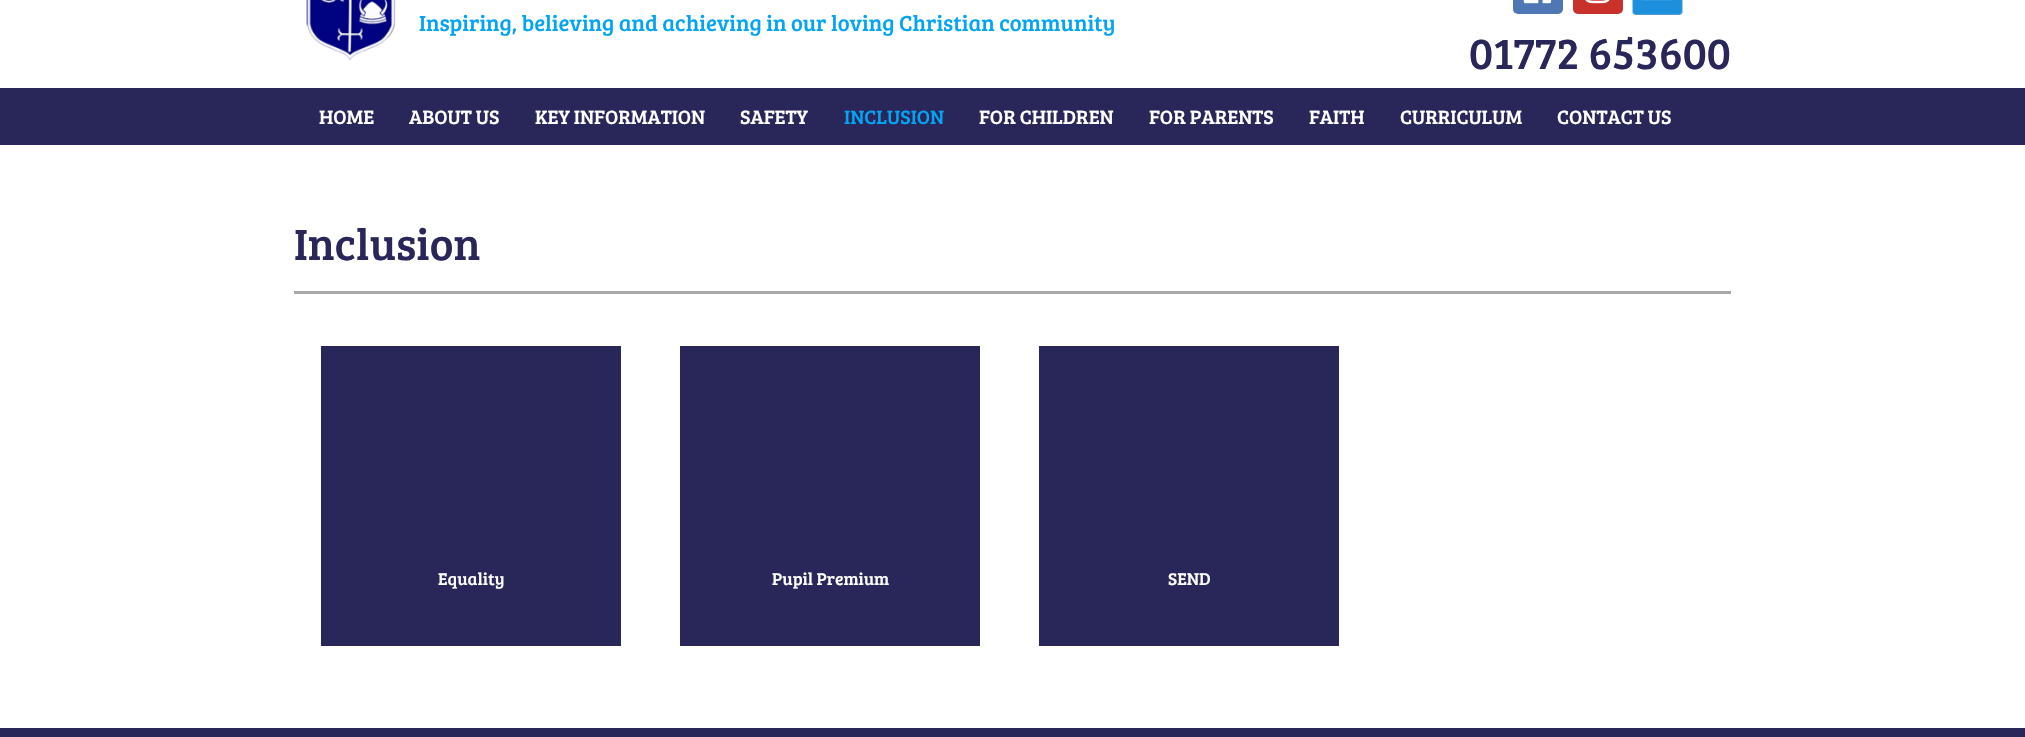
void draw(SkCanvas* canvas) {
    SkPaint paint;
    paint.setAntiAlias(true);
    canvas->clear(0xFFFFFFFF);
    canvas->drawImageRect(SkImages::DeferredFromEncodedData(SkData::MakeFromFileName("img1.png")), SkRect::MakeXYWH(306, 0, 90, 61), SkSamplingOptions());
    SkFont font1(fontMgr->matchFamilyStyle("Bree Serif", SkFontStyle::Normal()), 22.5f);
    font1.setSubpixel(true);
    paint.setColor(0xFF04A4F4);
    canvas->drawString("Inspiring, believing and achieving in our loving Christian community", 419, 31, font1, paint);
    paint.setColor(0xFF4F77B3);
    canvas->drawRoundRect(SkRect::MakeXYWH(1513, -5, 50, 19), 5, 5, paint);
    canvas->drawImageRect(SkImages::DeferredFromEncodedData(SkData::MakeFromFileName("img2.png")), SkRect::MakeXYWH(1523, 0, 29, 4), SkSamplingOptions());
    paint.setColor(0xFFC9312B);
    canvas->drawRoundRect(SkRect::MakeXYWH(1573, -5, 50, 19), 5, 5, paint);
    canvas->drawImageRect(SkImages::DeferredFromEncodedData(SkData::MakeFromFileName("img3.png")), SkRect::MakeXYWH(1585, 0, 25, 4), SkSamplingOptions());
    canvas->drawImageRect(SkImages::DeferredFromEncodedData(SkData::MakeFromFileName("img4.png")), SkRect::MakeXYWH(1632, 0, 51, 15), SkSamplingOptions());
    SkFont font2(fontMgr->matchFamilyStyle("Bree Serif", SkFontStyle::Normal()), 45);
    font2.setSubpixel(true);
    paint.setColor(0xFF292759);
    canvas->drawString("01772 653600", 1469, 69, font2, paint);
    canvas->drawRect(SkRect::MakeXYWH(0, 88, 2025, 57), paint);
    SkFont font3(fontMgr->matchFamilyStyle("Bree Serif", SkFontStyle::Normal()), 20);
    font3.setSubpixel(true);
    paint.setColor(0xFFFFFFFF);
    canvas->drawString("HOME", 319, 124, font3, paint);
    canvas->drawString("ABOUT US", 409, 124, font3, paint);
    canvas->drawString("KEY INFORMATION", 535, 124, font3, paint);
    canvas->drawString("SAFETY", 740, 124, font3, paint);
    paint.setColor(0xFF04A4F4);
    canvas->drawString("INCLUSION", 844, 124, font3, paint);
    paint.setColor(0xFFFFFFFF);
    canvas->drawString("FOR CHILDREN", 979, 124, font3, paint);
    canvas->drawString("FOR PARENTS", 1149, 124, font3, paint);
    canvas->drawString("FAITH", 1309, 124, font3, paint);
    canvas->drawString("CURRICULUM", 1400, 124, font3, paint);
    canvas->drawString("CONTACT US", 1557, 124, font3, paint);
    paint.setColor(0xFFAAA9A9);
    canvas->drawRect(SkRect::MakeXYWH(294, 291, 1437, 3), paint);
    paint.setColor(0xFF292759);
    canvas->drawString("Inclusion", 294, 260, font2, paint);
    canvas->drawRect(SkRect::MakeXYWH(321, 346, 300, 300), paint);
    SkFont font4(fontMgr->matchFamilyStyle("Bree Serif", SkFontStyle::Normal()), 17.5f);
    font4.setSubpixel(true);
    paint.setColor(0xFFFFFFFF);
    canvas->drawString("Equality", 438, 585, font4, paint);
    paint.setColor(0xFF292759);
    canvas->drawRect(SkRect::MakeXYWH(680, 346, 300, 300), paint);
    paint.setColor(0xFFFFFFFF);
    canvas->drawString("Pupil Premium", 772, 585, font4, paint);
    paint.setColor(0xFF292759);
    canvas->drawRect(SkRect::MakeXYWH(1039, 346, 300, 300), paint);
    paint.setColor(0xFFFFFFFF);
    canvas->drawString("SEND", 1168, 585, font4, paint);
    paint.setColor(0xFF292759);
    canvas->drawRect(SkRect::MakeXYWH(0, 728, 2025, 9), paint);
}
